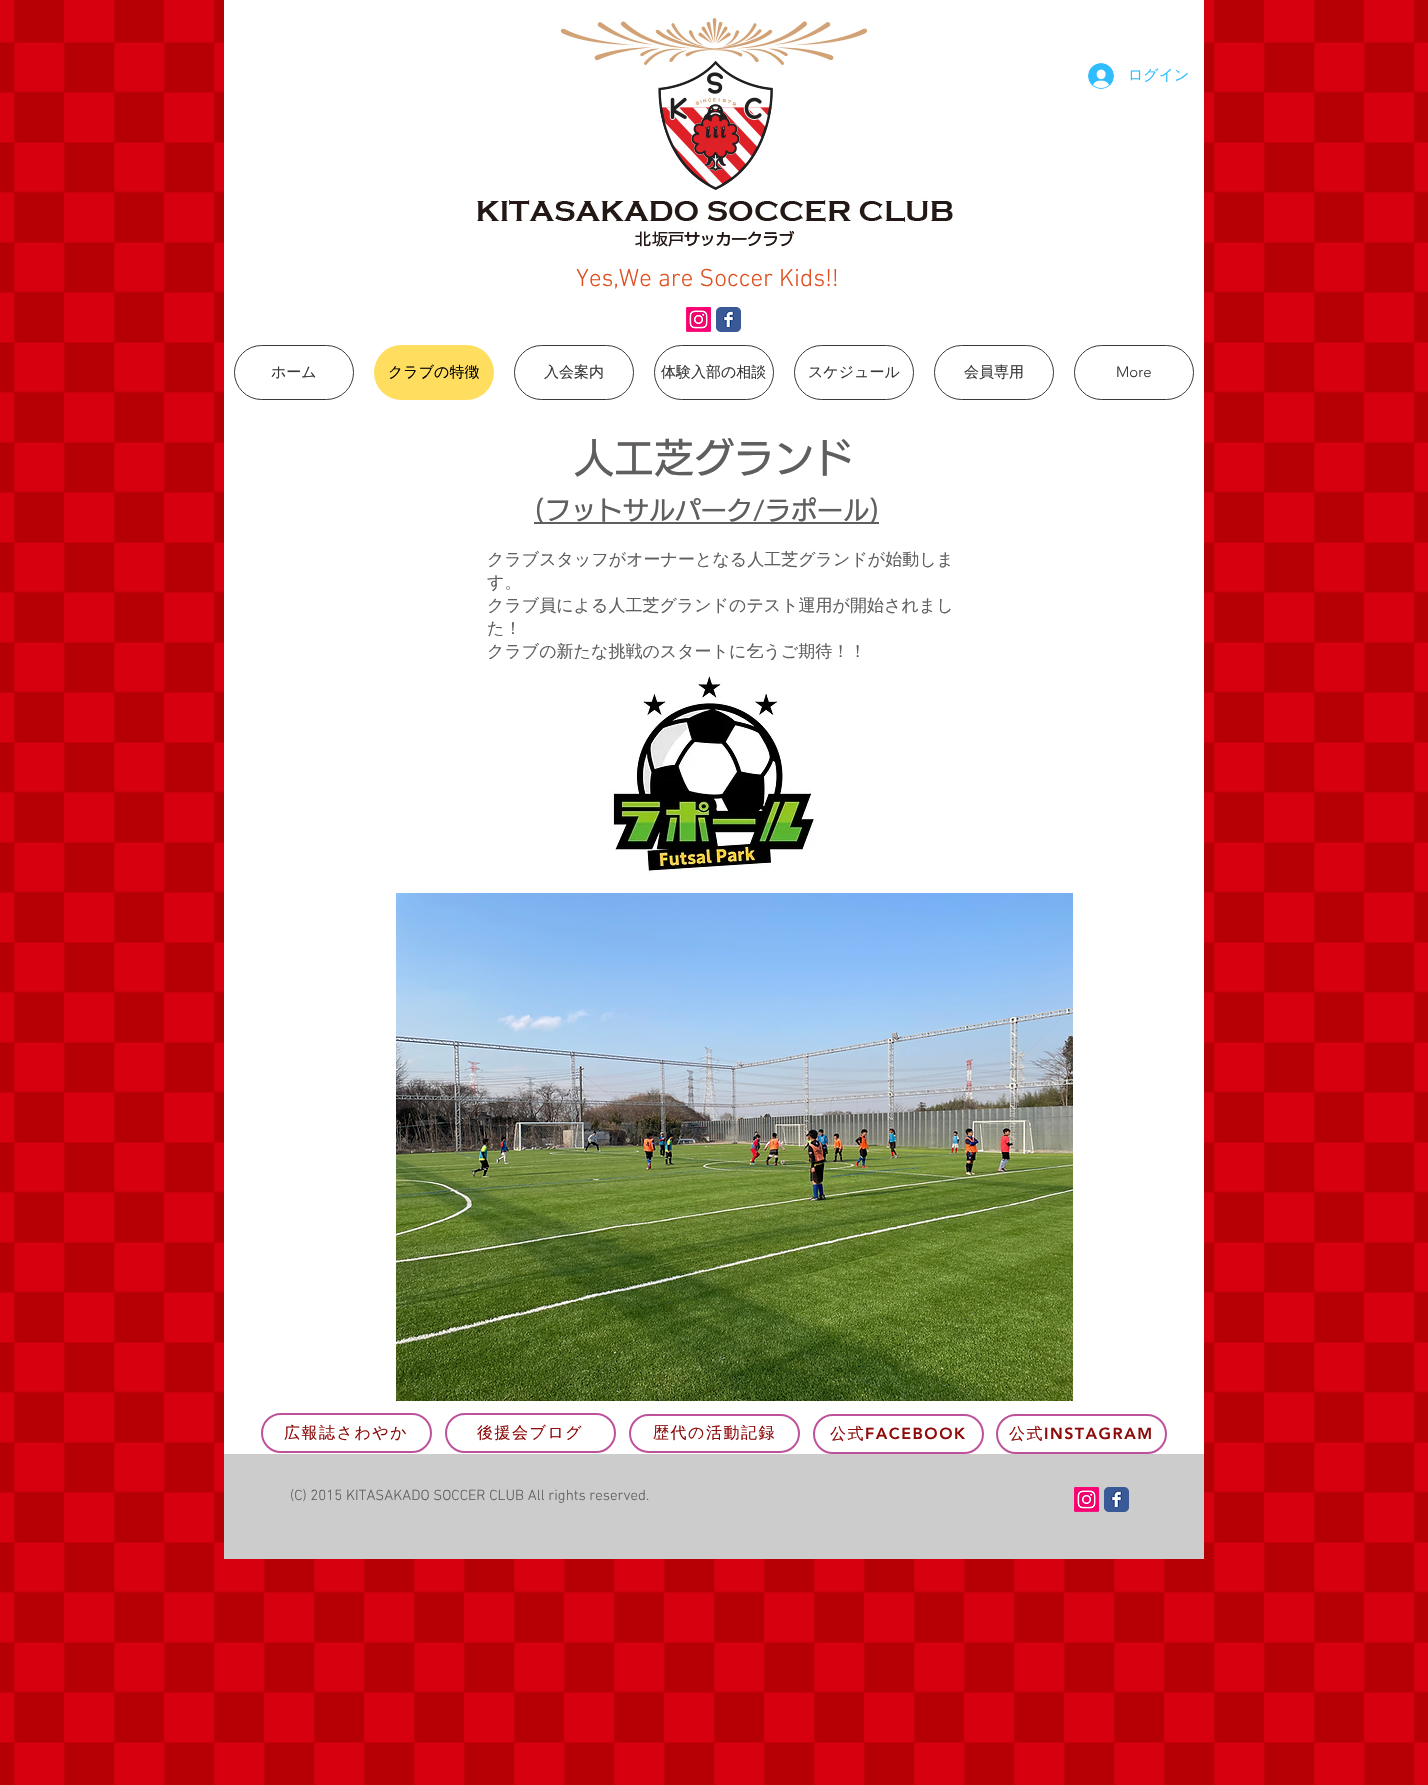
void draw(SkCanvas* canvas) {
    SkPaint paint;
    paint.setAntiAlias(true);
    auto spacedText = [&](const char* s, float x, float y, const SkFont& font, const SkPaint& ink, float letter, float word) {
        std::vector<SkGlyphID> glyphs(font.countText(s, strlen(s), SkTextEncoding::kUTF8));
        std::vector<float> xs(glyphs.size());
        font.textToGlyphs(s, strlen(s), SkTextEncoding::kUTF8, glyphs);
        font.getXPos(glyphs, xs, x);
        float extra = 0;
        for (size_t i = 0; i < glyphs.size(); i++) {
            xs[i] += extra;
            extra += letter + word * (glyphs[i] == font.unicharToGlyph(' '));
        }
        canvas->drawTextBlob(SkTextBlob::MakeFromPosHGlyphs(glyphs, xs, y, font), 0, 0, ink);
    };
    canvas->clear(0xFFFFFFFF);
    canvas->drawImageRect(SkImages::DeferredFromEncodedData(SkData::MakeFromFileName("img1.png")), SkRect::MakeXYWH(0, 0, 1428, 1785), SkSamplingOptions());
    paint.setColor(0xFFFFFFFF);
    canvas->drawRect(SkRect::MakeXYWH(224, 0, 980, 1454), paint);
    canvas->drawImageRect(SkImages::DeferredFromEncodedData(SkData::MakeFromFileName("img2.png")), SkRect::MakeXYWH(477, 13, 476, 234), SkSamplingOptions());
    canvas->drawImageRect(SkImages::DeferredFromEncodedData(SkData::MakeFromFileName("img3.png")), SkRect::MakeXYWH(1088, 63, 26, 26), SkSamplingOptions());
    SkFont font1(fontMgr->matchFamilyStyle("WenQuanYi Zen Hei", SkFontStyle(500, SkFontStyle::kNormal_Width, SkFontStyle::kUpright_Slant)), 15);
    font1.setSubpixel(true);
    paint.setColor(0xFF30BDFF);
    canvas->drawString("ログイン", 1128, 80, font1, paint);
    SkFont font2(fontMgr->matchFamilyStyle("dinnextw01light", SkFontStyle(300, SkFontStyle::kNormal_Width, SkFontStyle::kUpright_Slant)), 25);
    font2.setSubpixel(true);
    paint.setColor(0xFFDE5021);
    canvas->drawString("Yes,We are Soccer Kids!!", 576, 286, font2, paint);
    canvas->drawImageRect(SkImages::DeferredFromEncodedData(SkData::MakeFromFileName("img4.png")), SkRect::MakeXYWH(686, 307, 25, 25), SkSamplingOptions());
    canvas->drawImageRect(SkImages::DeferredFromEncodedData(SkData::MakeFromFileName("img5.png")), SkRect::MakeXYWH(716, 307, 25, 25), SkSamplingOptions());
    paint.setStyle(SkPaint::kStroke_Style);
    paint.setStrokeWidth(1);
    paint.setColor(0xFF383838);
    canvas->drawRoundRect(SkRect::MakeXYWH(234.5f, 345.5f, 119, 54), 27, 27, paint);
    paint.setStyle(SkPaint::kFill_Style);
    canvas->drawString("ホーム", 271, 377, font1, paint);
    paint.setColor(0xFFFFDE5F);
    canvas->drawRoundRect(SkRect::MakeXYWH(374, 345, 120, 55), 27.5f, 27.5f, paint);
    paint.setColor(0xFF000000);
    canvas->drawString("クラブの特徴", 388, 377, font1, paint);
    paint.setStyle(SkPaint::kStroke_Style);
    paint.setColor(0xFF383838);
    canvas->drawRoundRect(SkRect::MakeXYWH(514.5f, 345.5f, 119, 54), 27, 27, paint);
    paint.setStyle(SkPaint::kFill_Style);
    canvas->drawString("入会案内", 544, 377, font1, paint);
    paint.setStyle(SkPaint::kStroke_Style);
    canvas->drawRoundRect(SkRect::MakeXYWH(654.5f, 345.5f, 119, 54), 27, 27, paint);
    paint.setStyle(SkPaint::kFill_Style);
    canvas->drawString("体験入部の相談", 661, 377, font1, paint);
    paint.setStyle(SkPaint::kStroke_Style);
    canvas->drawRoundRect(SkRect::MakeXYWH(794.5f, 345.5f, 119, 54), 27, 27, paint);
    paint.setStyle(SkPaint::kFill_Style);
    canvas->drawString("スケジュール", 808, 377, font1, paint);
    paint.setStyle(SkPaint::kStroke_Style);
    canvas->drawRoundRect(SkRect::MakeXYWH(934.5f, 345.5f, 119, 54), 27, 27, paint);
    paint.setStyle(SkPaint::kFill_Style);
    canvas->drawString("会員専用", 964, 377, font1, paint);
    paint.setStyle(SkPaint::kStroke_Style);
    canvas->drawRoundRect(SkRect::MakeXYWH(1074.5f, 345.5f, 119, 54), 27, 27, paint);
    SkFont font3(fontMgr->matchFamilyStyle("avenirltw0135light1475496", SkFontStyle(300, SkFontStyle::kNormal_Width, SkFontStyle::kUpright_Slant)), 15);
    font3.setSubpixel(true);
    paint.setStyle(SkPaint::kFill_Style);
    canvas->drawString("More", 1116, 377, font3, paint);
    SkFont font4(fontMgr->matchFamilyStyle("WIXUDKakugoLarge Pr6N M", SkFontStyle(500, SkFontStyle::kNormal_Width, SkFontStyle::kUpright_Slant)), 40);
    font4.setSubpixel(true);
    paint.setColor(0xFF605E5E);
    canvas->drawString("人工芝グランド", 574, 473, font4, paint);
    canvas->drawRect(SkRect::MakeXYWH(534, 522, 345, 2), paint);
    SkFont font5(fontMgr->matchFamilyStyle("WIXUDKakugoLarge Pr6N M", SkFontStyle(500, SkFontStyle::kNormal_Width, SkFontStyle::kUpright_Slant)), 26);
    font5.setSubpixel(true);
    canvas->drawString("(フットサルパーク/ラポール)", 534, 520, font5, paint);
    SkFont font6(fontMgr->matchFamilyStyle("WenQuanYi Zen Hei", SkFontStyle(500, SkFontStyle::kNormal_Width, SkFontStyle::kUpright_Slant)), 17);
    font6.setSubpixel(true);
    canvas->drawString("クラブスタッフがオーナーとなる人工芝グランドが始動しま", 487, 565, font6, paint);
    canvas->drawString("す。", 487, 588, font6, paint);
    canvas->drawString("クラブ員による人工芝グランドのテスト運用が開始されまし", 487, 611, font6, paint);
    canvas->drawString("た！", 487, 634, font6, paint);
    canvas->drawString("クラブの新たな挑戦のスタートに乞うご期待！！", 487, 657, font6, paint);
    canvas->drawImageRect(SkImages::DeferredFromEncodedData(SkData::MakeFromFileName("img6.png")), SkRect::MakeXYWH(611, 674, 204, 199), SkSamplingOptions());
    canvas->drawImageRect(SkImages::DeferredFromEncodedData(SkData::MakeFromFileName("img7.png")), SkRect::MakeXYWH(396, 893, 677, 508), SkSamplingOptions());
    paint.setStyle(SkPaint::kStroke_Style);
    paint.setStrokeWidth(2);
    paint.setColor(0xFFBD529B);
    canvas->drawRoundRect(SkRect::MakeXYWH(262, 1414, 169, 38), 19, 19, paint);
    SkFont font7(fontMgr->matchFamilyStyle("WenQuanYi Zen Hei", SkFontStyle(500, SkFontStyle::kNormal_Width, SkFontStyle::kUpright_Slant)), 16);
    font7.setSubpixel(true);
    paint.setStyle(SkPaint::kFill_Style);
    paint.setColor(0xFF8D0B0B);
    spacedText("広報誌さわやか", 284, 1438, font7, paint, 1.5f, 0);
    paint.setStyle(SkPaint::kStroke_Style);
    paint.setColor(0xFFBD529B);
    canvas->drawRoundRect(SkRect::MakeXYWH(446, 1414, 169, 38), 19, 19, paint);
    paint.setStyle(SkPaint::kFill_Style);
    paint.setColor(0xFF8D0B0B);
    spacedText("後援会ブログ", 477, 1438, font7, paint, 1.5f, 0);
    paint.setStyle(SkPaint::kStroke_Style);
    paint.setColor(0xFFBD529B);
    canvas->drawRoundRect(SkRect::MakeXYWH(630, 1415, 169, 37), 18.5f, 18.5f, paint);
    paint.setStyle(SkPaint::kFill_Style);
    paint.setColor(0xFF8D0B0B);
    spacedText("歴代の活動記録", 653, 1438, font7, paint, 1.5f, 0);
    paint.setStyle(SkPaint::kStroke_Style);
    paint.setColor(0xFFBD529B);
    canvas->drawRoundRect(SkRect::MakeXYWH(814, 1415, 169, 38), 19, 19, paint);
    paint.setStyle(SkPaint::kFill_Style);
    paint.setColor(0xFF8D0B0B);
    spacedText("公式", 830, 1439, font7, paint, 1.5f, 0);
    SkFont font8(fontMgr->matchFamilyStyle("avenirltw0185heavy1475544", SkFontStyle(900, SkFontStyle::kNormal_Width, SkFontStyle::kUpright_Slant)), 16);
    font8.setSubpixel(true);
    spacedText("FACEBOOK", 865, 1439, font8, paint, 1.5f, 0);
    paint.setStyle(SkPaint::kStroke_Style);
    paint.setColor(0xFFBD529B);
    canvas->drawRoundRect(SkRect::MakeXYWH(997, 1415, 169, 38), 19, 19, paint);
    paint.setStyle(SkPaint::kFill_Style);
    paint.setColor(0xFF8D0B0B);
    spacedText("公式", 1009, 1439, font7, paint, 1.5f, 0);
    spacedText("INSTAGRAM", 1044, 1439, font8, paint, 1.5f, 0);
    paint.setColor(0xFFCCCCCC);
    canvas->drawRect(SkRect::MakeXYWH(224, 1454, 980, 105), paint);
    SkFont font9(fontMgr->matchFamilyStyle("dinnextw01light", SkFontStyle(300, SkFontStyle::kNormal_Width, SkFontStyle::kUpright_Slant)), 15);
    font9.setSubpixel(true);
    paint.setColor(0xFF605E5E);
    canvas->drawString("(C) 2015 KITASAKADO SOCCER CLUB All rights reserved.", 290, 1500, font9, paint);
    canvas->drawImageRect(SkImages::DeferredFromEncodedData(SkData::MakeFromFileName("img8.png")), SkRect::MakeXYWH(1074, 1487, 25, 25), SkSamplingOptions());
    canvas->drawImageRect(SkImages::DeferredFromEncodedData(SkData::MakeFromFileName("img9.png")), SkRect::MakeXYWH(1104, 1487, 25, 25), SkSamplingOptions());
}
